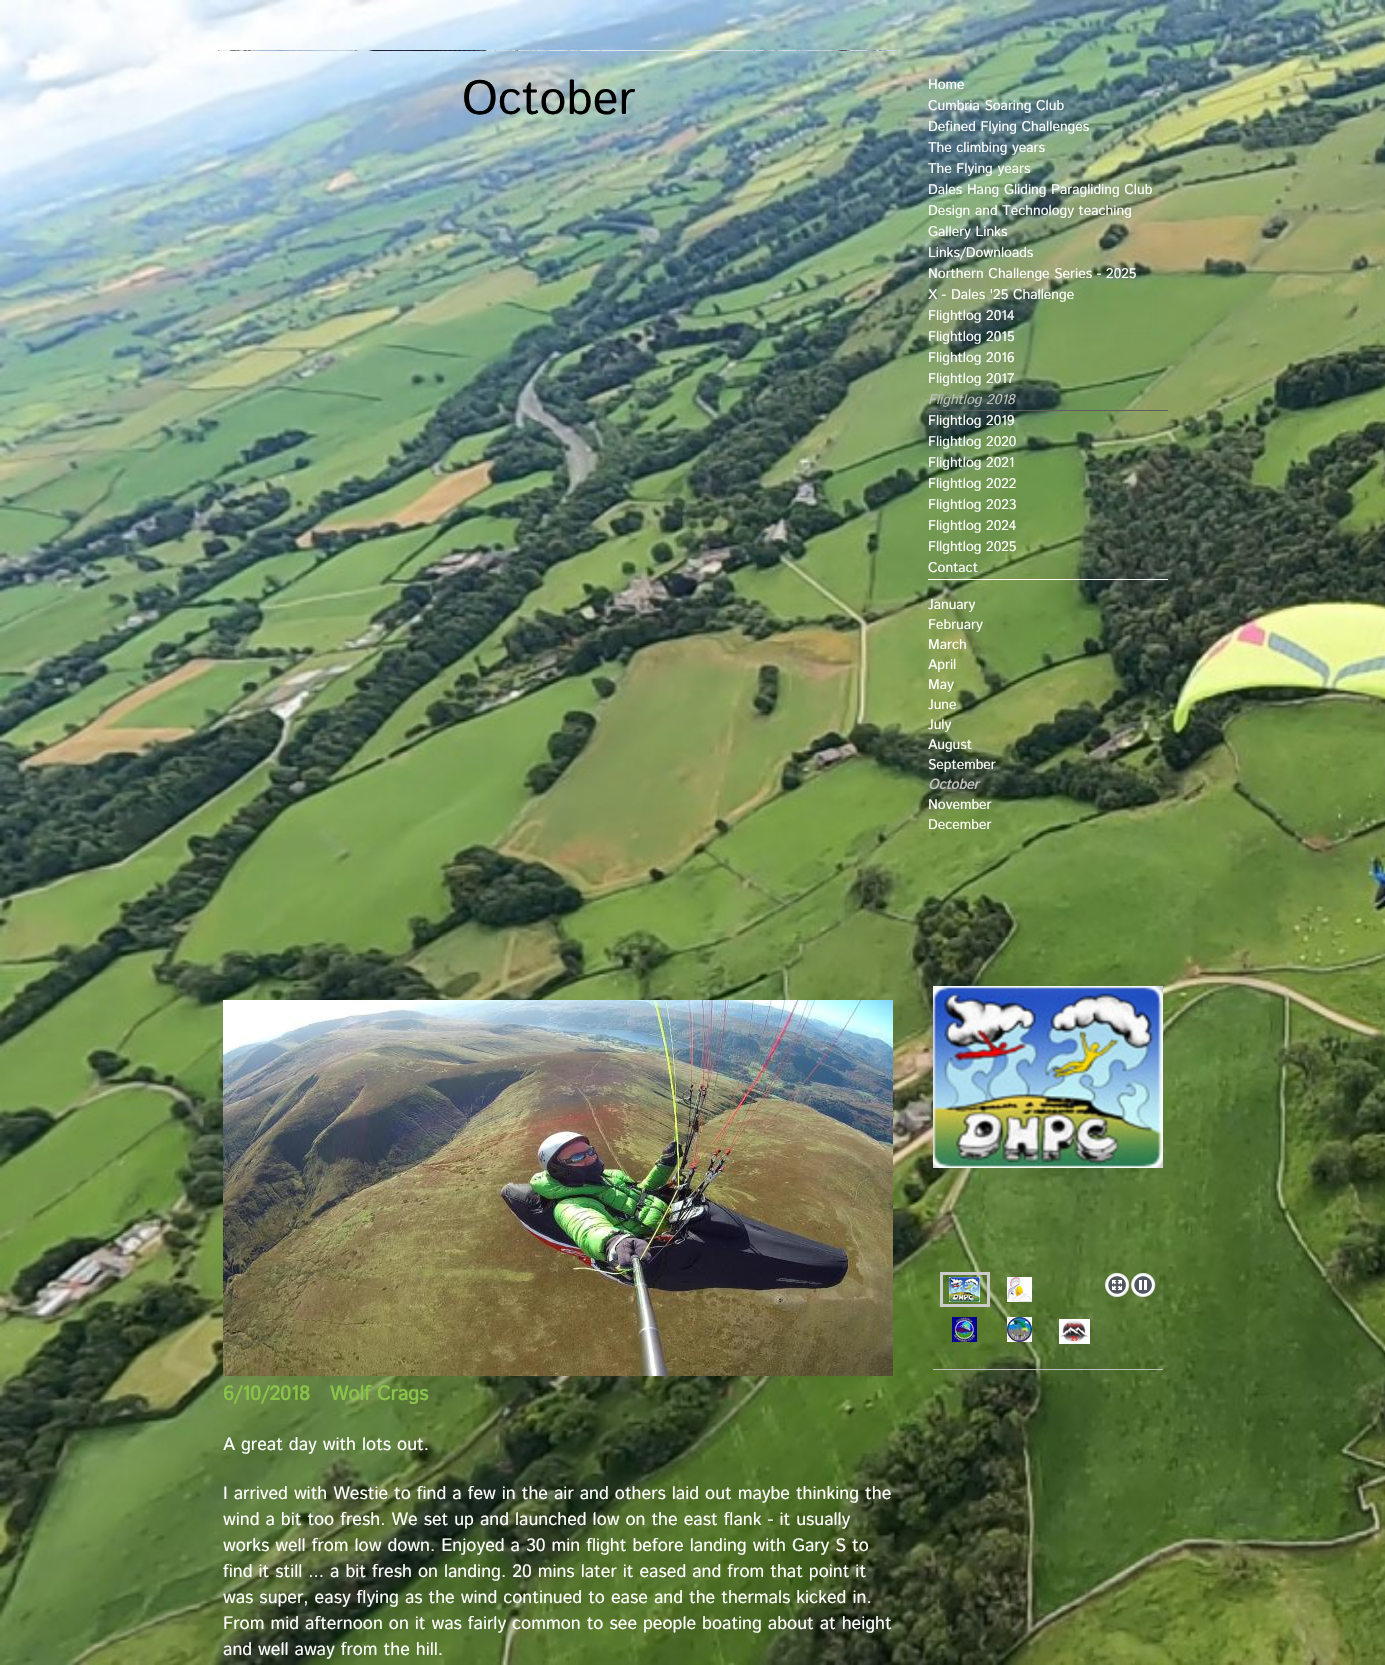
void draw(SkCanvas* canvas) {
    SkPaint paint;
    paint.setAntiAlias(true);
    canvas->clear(0xFFFFFFFF);
    canvas->drawImageRect(SkImages::DeferredFromEncodedData(SkData::MakeFromFileName("img1.png")), SkRect::MakeXYWH(0, 0, 1385, 1665), SkSamplingOptions());
    canvas->drawImageRect(SkImages::DeferredFromEncodedData(SkData::MakeFromFileName("img2.png")), SkRect::MakeXYWH(218, 50, 680, 1), SkSamplingOptions());
    SkFont font1(fontMgr->matchFamilyStyle("Istok Web", SkFontStyle::Normal()), 48);
    font1.setSubpixel(true);
    paint.setColor(0xFF000000);
    canvas->drawString("October", 462, 114, font1, paint);
    canvas->drawImageRect(SkImages::DeferredFromEncodedData(SkData::MakeFromFileName("img3.png")), SkRect::MakeXYWH(223, 1000, 670, 376), SkSamplingOptions());
    SkFont font2(fontMgr->matchFamilyStyle("Istok Web", SkFontStyle::Bold()), 20);
    font2.setSubpixel(true);
    paint.setColor(0xFF8AC34A);
    canvas->drawString("6/10/2018   Wolf Crags", 223, 1400, font2, paint);
    SkFont font3(fontMgr->matchFamilyStyle("Istok Web", SkFontStyle::Normal()), 18);
    font3.setSubpixel(true);
    paint.setColor(0xFFFFFFFF);
    canvas->drawString("A great day with lots out.", 223, 1450, font3, paint);
    canvas->drawString("I arrived with Westie to find a few in the air and others laid out maybe thinking the", 223, 1499, font3, paint);
    canvas->drawString("wind a bit too fresh. We set up and launched low on the east flank - it usually", 223, 1525, font3, paint);
    canvas->drawString("works well from low down. Enjoyed a 30 min flight before landing with Gary S to", 223, 1551, font3, paint);
    canvas->drawString("find it still ... a bit fresh on landing. 20 mins later it eased and from that point it", 223, 1577, font3, paint);
    canvas->drawString("was super, easy flying as the wind continued to ease and the thermals kicked in.", 223, 1603, font3, paint);
    canvas->drawString("From mid afternoon on it was fairly common to see people boating about at height", 223, 1629, font3, paint);
    canvas->drawString("and well away from the hill.", 223, 1655, font3, paint);
    canvas->drawRect(SkRect::MakeXYWH(928, 579, 240, 1), paint);
    SkFont font4(fontMgr->matchFamilyStyle("Istok Web", SkFontStyle::Normal()), 14);
    font4.setSubpixel(true);
    canvas->drawString("Home", 928, 89, font4, paint);
    canvas->drawString("Cumbria Soaring Club", 928, 110, font4, paint);
    canvas->drawString("Defined Flying Challenges", 928, 131, font4, paint);
    canvas->drawString("The climbing years", 928, 152, font4, paint);
    canvas->drawString("The Flying years", 928, 173, font4, paint);
    canvas->drawString("Dales Hang Gliding Paragliding Club", 928, 194, font4, paint);
    canvas->drawString("Design and Technology teaching", 928, 215, font4, paint);
    canvas->drawString("Gallery Links", 928, 236, font4, paint);
    canvas->drawString("Links/Downloads", 928, 257, font4, paint);
    canvas->drawString("Northern Challenge Series - 2025", 928, 278, font4, paint);
    canvas->drawString("X - Dales '25 Challenge", 928, 299, font4, paint);
    canvas->drawString("Flightlog 2014", 928, 320, font4, paint);
    canvas->drawString("Flightlog 2015", 928, 341, font4, paint);
    canvas->drawString("Flightlog 2016", 928, 362, font4, paint);
    canvas->drawString("Flightlog 2017", 928, 383, font4, paint);
    paint.setColor(0xFF5E5E5E);
    canvas->drawRect(SkRect::MakeXYWH(928, 410, 240, 1), paint);
    SkFont font5(fontMgr->matchFamilyStyle("Istok Web", SkFontStyle::Italic()), 14);
    font5.setSubpixel(true);
    paint.setColor(0xFFBFBFBF);
    canvas->drawString("Flightlog 2018", 928, 404, font5, paint);
    paint.setColor(0xFFFFFFFF);
    canvas->drawString("Flightlog 2019", 928, 425, font4, paint);
    canvas->drawString("Flightlog 2020", 928, 446, font4, paint);
    canvas->drawString("Flightlog 2021", 928, 467, font4, paint);
    canvas->drawString("Flightlog 2022", 928, 488, font4, paint);
    canvas->drawString("Flightlog 2023", 928, 509, font4, paint);
    canvas->drawString("Flightlog 2024", 928, 530, font4, paint);
    canvas->drawString("Fllghtlog 2025", 928, 551, font4, paint);
    canvas->drawString("Contact", 928, 572, font4, paint);
    canvas->drawString("January", 928, 609, font4, paint);
    canvas->drawString("February", 928, 629, font4, paint);
    canvas->drawString("March", 928, 649, font4, paint);
    canvas->drawString("April", 928, 669, font4, paint);
    canvas->drawString("May", 928, 689, font4, paint);
    canvas->drawString("June", 928, 709, font4, paint);
    canvas->drawString("July", 928, 729, font4, paint);
    canvas->drawString("August", 928, 749, font4, paint);
    canvas->drawString("September", 928, 769, font4, paint);
    SkFont font6(fontMgr->matchFamilyStyle("Istok Web", SkFontStyle::BoldItalic()), 14);
    font6.setSubpixel(true);
    paint.setColor(0xFFBFBFBF);
    canvas->drawString("October", 928, 789, font6, paint);
    paint.setColor(0xFFFFFFFF);
    canvas->drawString("November", 928, 809, font4, paint);
    canvas->drawString("December", 928, 829, font4, paint);
    canvas->drawImageRect(SkImages::DeferredFromEncodedData(SkData::MakeFromFileName("img4.png")), SkRect::MakeXYWH(933, 986, 230, 182), SkSamplingOptions());
    paint.setStyle(SkPaint::kStroke_Style);
    paint.setStrokeWidth(3);
    paint.setColor(0xFFCCCCCC);
    canvas->drawRect(SkRect::MakeXYWH(941.5f, 1273.5f, 47, 32), paint);
    canvas->drawImageRect(SkImages::DeferredFromEncodedData(SkData::MakeFromFileName("img5.png")), SkRect::MakeXYWH(949, 1277, 31, 25), SkSamplingOptions());
    canvas->drawImageRect(SkImages::DeferredFromEncodedData(SkData::MakeFromFileName("img6.png")), SkRect::MakeXYWH(1007, 1277, 25, 25), SkSamplingOptions());
    canvas->drawImageRect(SkImages::DeferredFromEncodedData(SkData::MakeFromFileName("img7.png")), SkRect::MakeXYWH(1105, 1272, 25, 25), SkSamplingOptions());
    canvas->drawImageRect(SkImages::DeferredFromEncodedData(SkData::MakeFromFileName("img8.png")), SkRect::MakeXYWH(1131, 1272, 25, 25), SkSamplingOptions());
    canvas->drawImageRect(SkImages::DeferredFromEncodedData(SkData::MakeFromFileName("img9.png")), SkRect::MakeXYWH(952, 1317, 25, 25), SkSamplingOptions());
    canvas->drawImageRect(SkImages::DeferredFromEncodedData(SkData::MakeFromFileName("img10.png")), SkRect::MakeXYWH(1007, 1317, 25, 25), SkSamplingOptions());
    canvas->drawImageRect(SkImages::DeferredFromEncodedData(SkData::MakeFromFileName("img11.png")), SkRect::MakeXYWH(1059, 1319, 31, 25), SkSamplingOptions());
    paint.setStyle(SkPaint::kFill_Style);
    paint.setColor(0xFFC0BEBF);
    canvas->drawRect(SkRect::MakeXYWH(933, 1369, 230, 1), paint);
}
